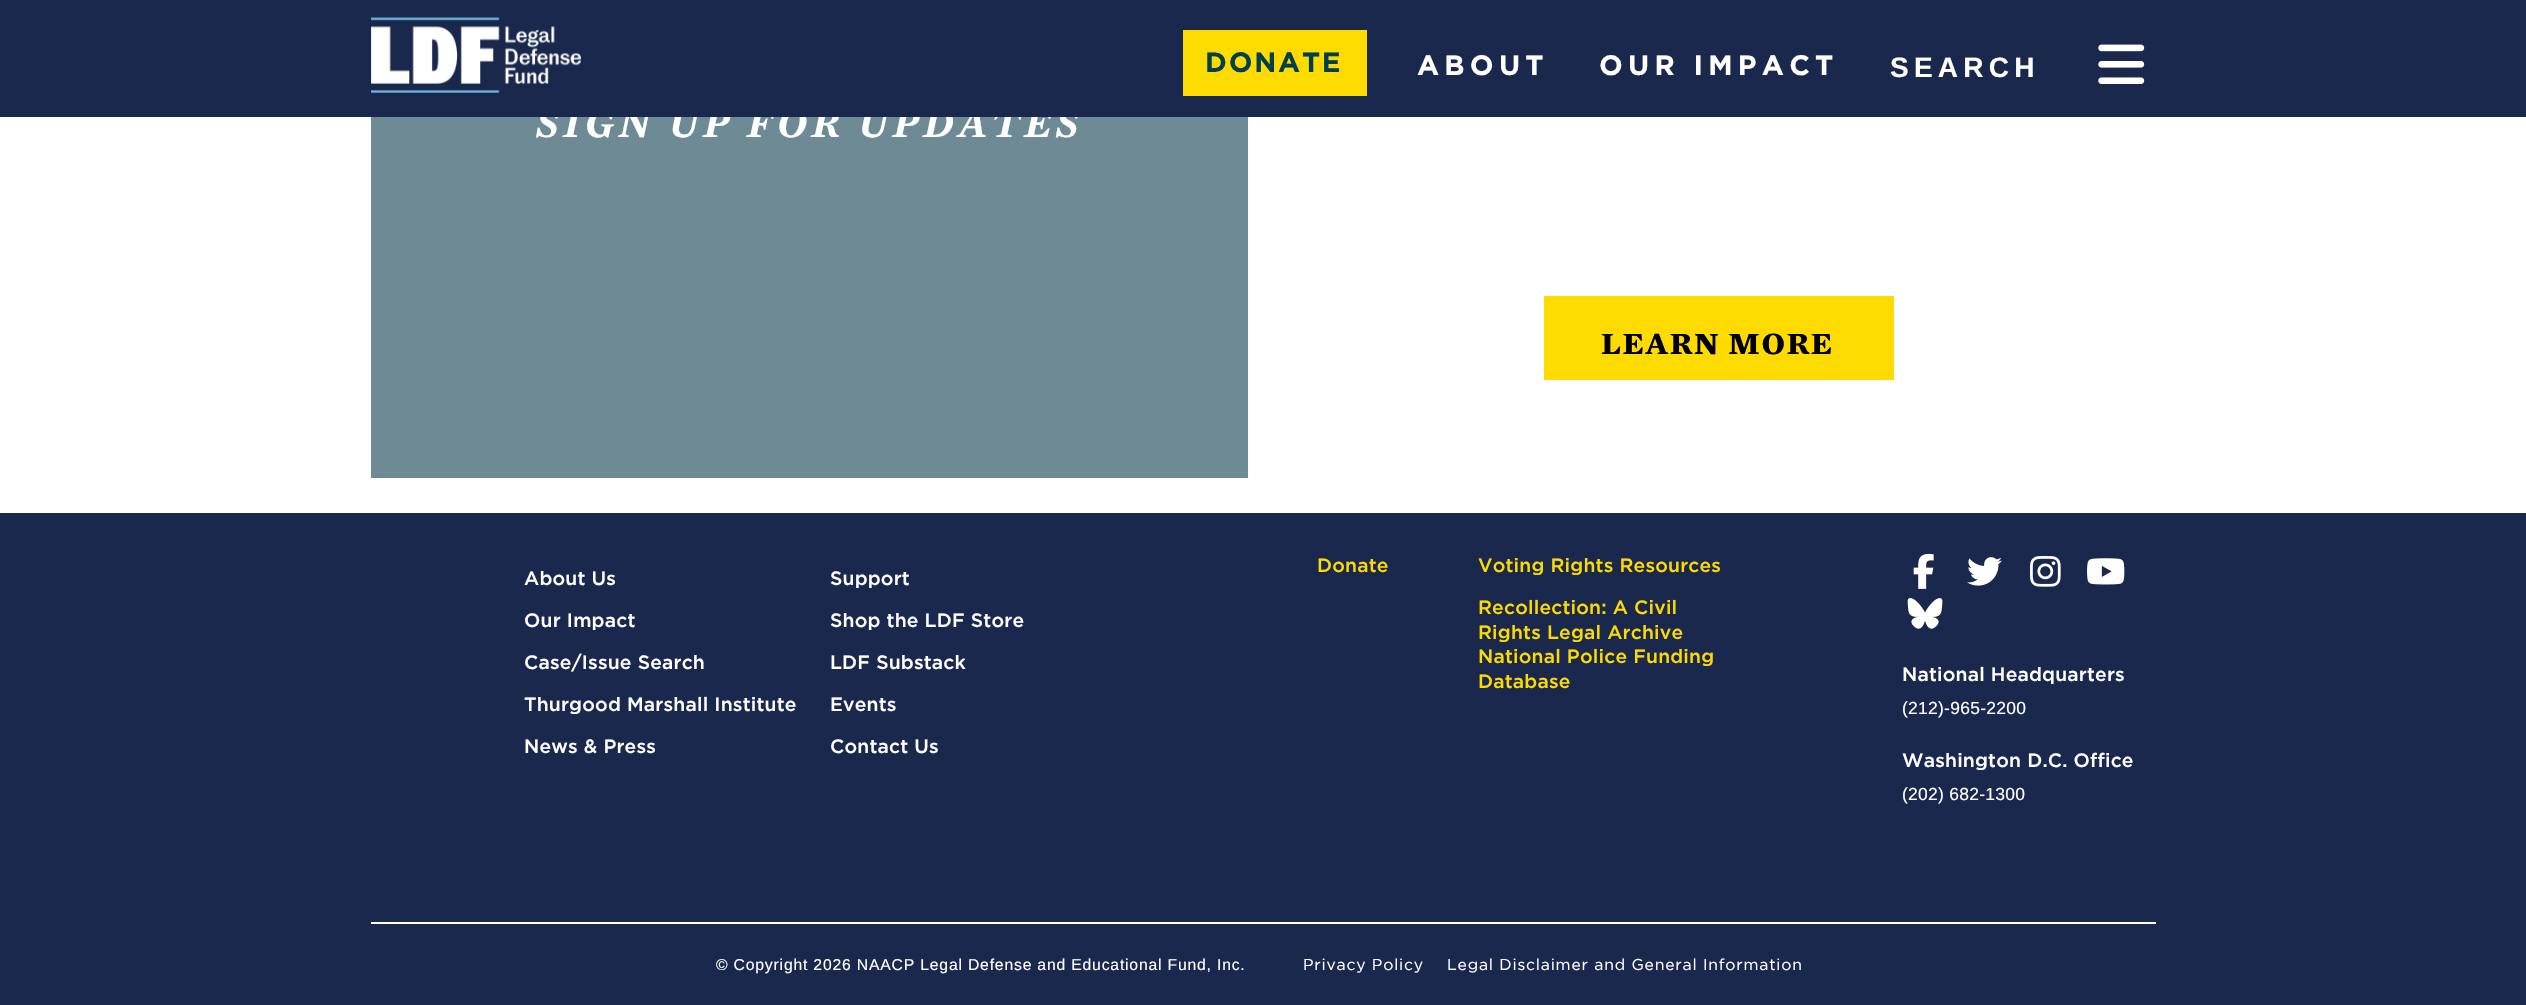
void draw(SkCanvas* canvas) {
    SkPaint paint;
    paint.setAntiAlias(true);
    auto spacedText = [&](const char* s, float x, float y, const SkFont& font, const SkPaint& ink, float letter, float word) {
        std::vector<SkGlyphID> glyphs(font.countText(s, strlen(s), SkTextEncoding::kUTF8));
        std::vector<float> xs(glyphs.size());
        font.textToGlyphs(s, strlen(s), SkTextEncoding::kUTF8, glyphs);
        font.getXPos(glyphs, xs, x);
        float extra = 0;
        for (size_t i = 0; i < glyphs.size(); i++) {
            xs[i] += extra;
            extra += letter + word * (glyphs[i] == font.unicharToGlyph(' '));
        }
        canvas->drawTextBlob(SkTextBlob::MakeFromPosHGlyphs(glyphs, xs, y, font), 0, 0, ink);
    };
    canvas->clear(0xFFFFFFFF);
    paint.setColor(0xFF6D8A95);
    canvas->drawRect(SkRect::MakeXYWH(371, 117, 877, 361), paint);
    SkFont font1(fontMgr->matchFamilyStyle("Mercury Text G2", SkFontStyle(600, SkFontStyle::kNormal_Width, SkFontStyle::kItalic_Slant)), 42);
    font1.setSubpixel(true);
    paint.setColor(0xFFFFFFFF);
    spacedText("SIGN UP FOR UPDATES", 536, 137, font1, paint, 4.25f, 0);
    paint.setColor(0xFF1A284E);
    canvas->drawRect(SkRect::MakeXYWH(0, 0, 2526, 117), paint);
    canvas->drawImageRect(SkImages::DeferredFromEncodedData(SkData::MakeFromFileName("img1.png")), SkRect::MakeXYWH(371, 17, 210, 76), SkSamplingOptions());
    paint.setColor(0xFFFDDB00);
    canvas->drawRect(SkRect::MakeXYWH(1183, 30, 184, 66), paint);
    SkFont font2(fontMgr->matchFamilyStyle("Gotham", SkFontStyle::Bold()), 28);
    font2.setSubpixel(true);
    paint.setColor(0xFF003F4E);
    spacedText("DONATE", 1205, 72, font2, paint, 1.75f, 0);
    paint.setColor(0xFFFFFFFF);
    spacedText("ABOUT", 1417, 75, font2, paint, 5.25f, 0);
    spacedText("OUR IMPACT", 1599, 75, font2, paint, 5.25f, 0);
    SkFont font3(fontMgr->matchFamilyStyle("Liberation Sans", SkFontStyle::Bold()), 28);
    font3.setSubpixel(true);
    spacedText("SEARCH", 1890, 77, font3, paint, 5.25f, 0);
    canvas->drawImageRect(SkImages::DeferredFromEncodedData(SkData::MakeFromFileName("img2.png")), SkRect::MakeXYWH(2098, 44, 47, 40), SkSamplingOptions());
    paint.setColor(0xFFFDDB00);
    canvas->drawRect(SkRect::MakeXYWH(1544, 296, 350, 84), paint);
    SkFont font4(fontMgr->matchFamilyStyle("Mercury Text G2", SkFontStyle::Bold()), 31.5f);
    font4.setSubpixel(true);
    paint.setColor(0xFF000000);
    spacedText("LEARN MORE", 1601, 354, font4, paint, 1.5f, 0);
    paint.setColor(0xFF1A284E);
    canvas->drawRect(SkRect::MakeXYWH(0, 513, 2526, 492), paint);
    SkFont font5(fontMgr->matchFamilyStyle("Gotham", SkFontStyle(500, SkFontStyle::kNormal_Width, SkFontStyle::kUpright_Slant)), 19.25f);
    font5.setSubpixel(true);
    paint.setColor(0xFFFDDB00);
    spacedText("Donate", 1317, 572, font5, paint, 0.2f, 0);
    paint.setColor(0xFFFFFFFF);
    spacedText("About Us", 524, 585, font5, paint, 0.2f, 0);
    spacedText("Our Impact", 524, 627, font5, paint, 0.2f, 0);
    spacedText("Case/Issue Search", 524, 669, font5, paint, 0.2f, 0);
    spacedText("Thurgood Marshall Institute", 524, 711, font5, paint, 0.2f, 0);
    spacedText("News & Press", 524, 753, font5, paint, 0.2f, 0);
    spacedText("Support", 830, 585, font5, paint, 0.2f, 0);
    spacedText("Shop the LDF Store", 830, 627, font5, paint, 0.2f, 0);
    spacedText("LDF Substack", 830, 669, font5, paint, 0.2f, 0);
    spacedText("Events", 830, 711, font5, paint, 0.2f, 0);
    spacedText("Contact Us", 830, 753, font5, paint, 0.2f, 0);
    paint.setColor(0xFFFDDB00);
    spacedText("Voting Rights Resources", 1478, 572, font5, paint, 0.2f, 0);
    spacedText("Recollection: A Civil", 1478, 614, font5, paint, 0.2f, 0);
    spacedText("Rights Legal Archive", 1478, 639, font5, paint, 0.2f, 0);
    spacedText("National Police Funding", 1478, 663, font5, paint, 0.2f, 0);
    spacedText("Database", 1478, 688, font5, paint, 0.2f, 0);
    canvas->drawImageRect(SkImages::DeferredFromEncodedData(SkData::MakeFromFileName("img3.png")), SkRect::MakeXYWH(1913, 553, 21, 36), SkSamplingOptions());
    canvas->drawImageRect(SkImages::DeferredFromEncodedData(SkData::MakeFromFileName("img4.png")), SkRect::MakeXYWH(1967, 557, 35, 29), SkSamplingOptions());
    canvas->drawImageRect(SkImages::DeferredFromEncodedData(SkData::MakeFromFileName("img5.png")), SkRect::MakeXYWH(2030, 556, 31, 31), SkSamplingOptions());
    canvas->drawImageRect(SkImages::DeferredFromEncodedData(SkData::MakeFromFileName("img6.png")), SkRect::MakeXYWH(2087, 558, 38, 27), SkSamplingOptions());
    canvas->drawImageRect(SkImages::DeferredFromEncodedData(SkData::MakeFromFileName("img7.png")), SkRect::MakeXYWH(1907, 598, 36, 31), SkSamplingOptions());
    paint.setColor(0xFFFFFFFF);
    spacedText("National Headquarters", 1902, 681, font5, paint, 0.2f, 0);
    SkFont font6(fontMgr->matchFamilyStyle("Liberation Sans", SkFontStyle::Normal()), 17.5f);
    font6.setSubpixel(true);
    spacedText("(212)-965-2200", 1902, 714, font6, paint, 0.25f, 0);
    spacedText("Washington D.C. Office", 1902, 767, font5, paint, 0.2f, 0);
    spacedText("(202) 682-1300", 1902, 800, font6, paint, 0.25f, 0);
    canvas->drawRect(SkRect::MakeXYWH(371, 922, 1785, 2), paint);
    SkFont font7(fontMgr->matchFamilyStyle("Liberation Sans", SkFontStyle::Normal()), 15.75f);
    font7.setSubpixel(true);
    spacedText("© Copyright 2026 NAACP Legal Defense and Educational Fund, Inc.", 716, 970, font7, paint, 0.8f, 0);
    SkFont font8(fontMgr->matchFamilyStyle("Gotham", SkFontStyle::Normal()), 15.75f);
    font8.setSubpixel(true);
    spacedText("Privacy Policy", 1303, 970, font8, paint, 0.8f, 0);
    spacedText("Legal Disclaimer and General Information", 1447, 970, font8, paint, 0.8f, 0);
}
